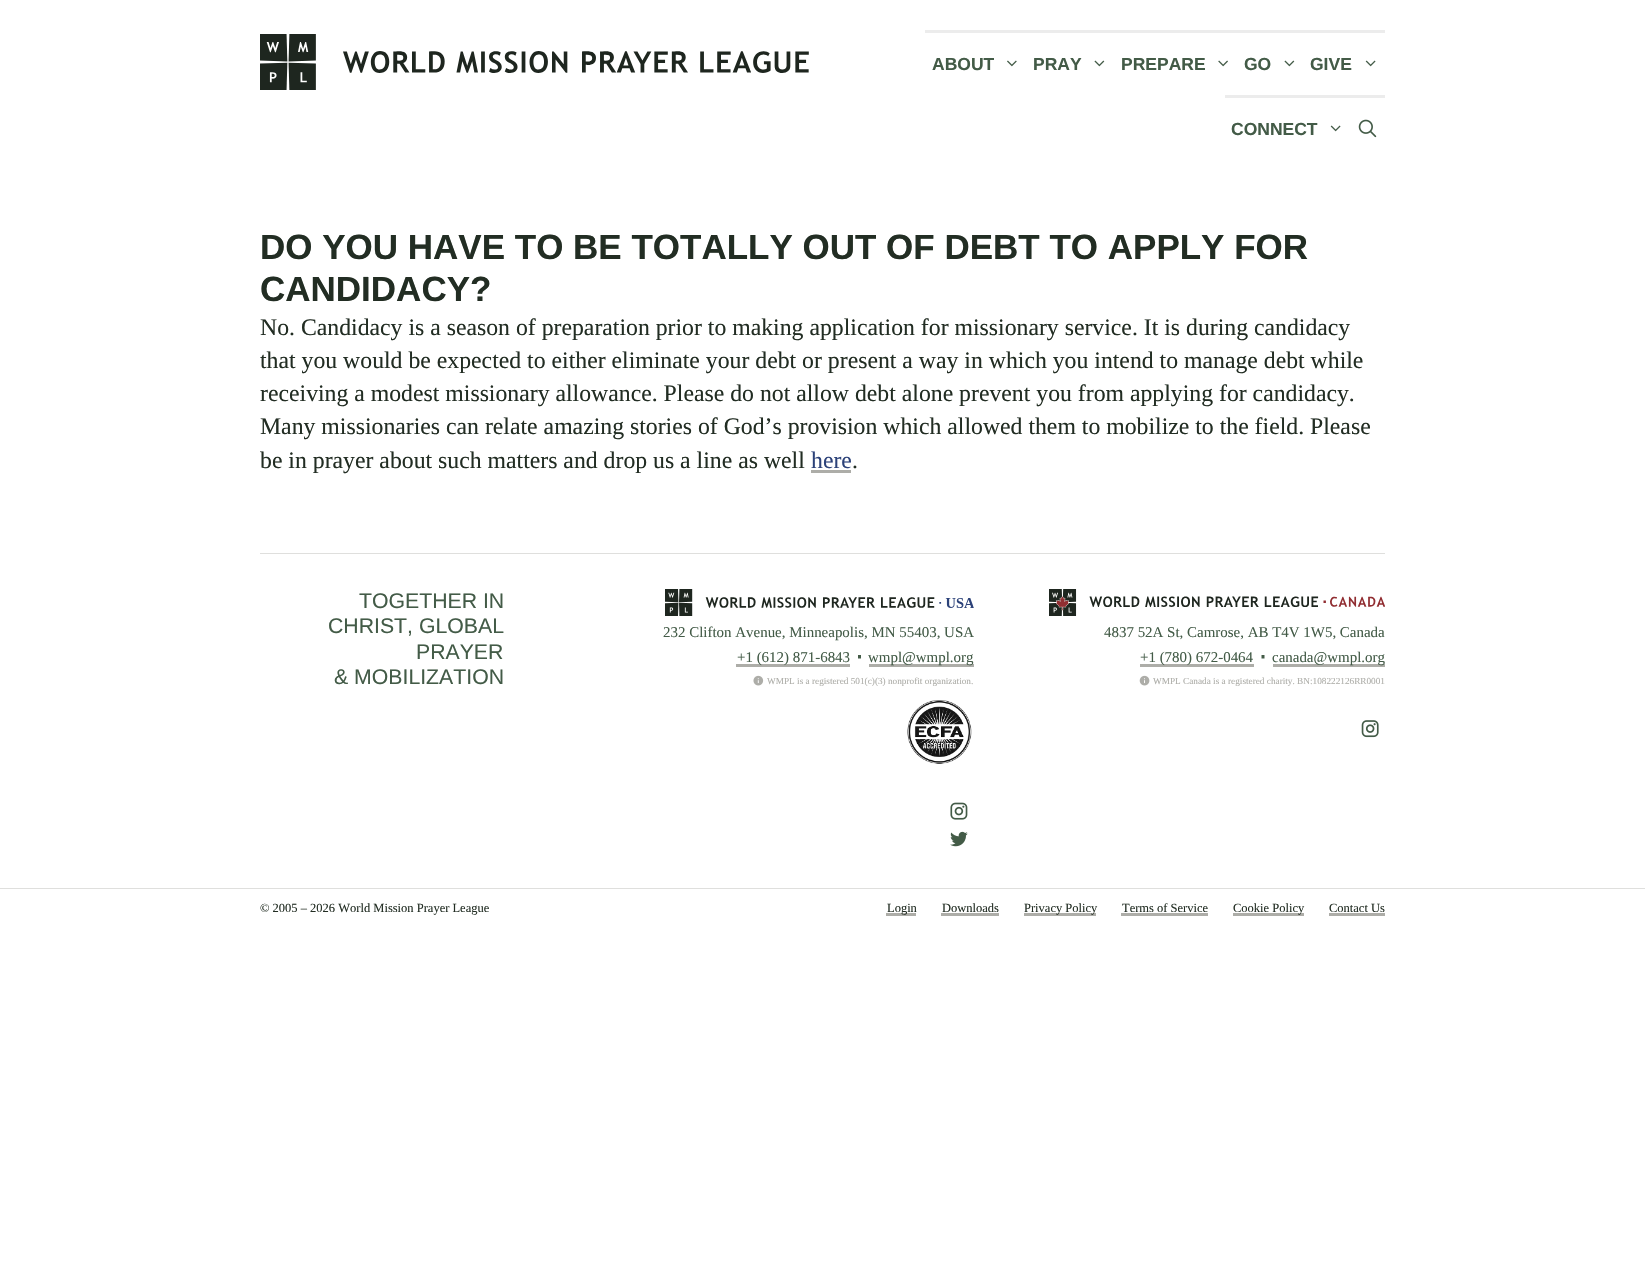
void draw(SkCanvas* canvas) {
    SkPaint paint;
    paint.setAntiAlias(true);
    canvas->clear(0xFFFFFFFF);
    canvas->drawImageRect(SkImages::DeferredFromEncodedData(SkData::MakeFromFileName("img1.png")), SkRect::MakeXYWH(260, 34, 549, 56), SkSamplingOptions());
    paint.setColor(0xFFECECEC);
    canvas->drawRect(SkRect::MakeXYWH(925, 30, 460, 3), paint);
    SkFont font1(fontMgr->matchFamilyStyle("Liberation Sans", SkFontStyle::Bold()), 17.5f);
    font1.setSubpixel(true);
    paint.setColor(0xFF435B47);
    canvas->drawString("ABOUT", 932, 70, font1, paint);
    canvas->drawImageRect(SkImages::DeferredFromEncodedData(SkData::MakeFromFileName("img2.png")), SkRect::MakeXYWH(1007, 60, 10, 7), SkSamplingOptions());
    canvas->drawString("PRAY", 1033, 70, font1, paint);
    canvas->drawImageRect(SkImages::DeferredFromEncodedData(SkData::MakeFromFileName("img3.png")), SkRect::MakeXYWH(1094, 60, 11, 7), SkSamplingOptions());
    canvas->drawString("PREPARE", 1121, 70, font1, paint);
    canvas->drawImageRect(SkImages::DeferredFromEncodedData(SkData::MakeFromFileName("img4.png")), SkRect::MakeXYWH(1218, 60, 10, 7), SkSamplingOptions());
    canvas->drawString("GO", 1244, 70, font1, paint);
    canvas->drawImageRect(SkImages::DeferredFromEncodedData(SkData::MakeFromFileName("img3.png")), SkRect::MakeXYWH(1284, 60, 11, 7), SkSamplingOptions());
    canvas->drawString("GIVE", 1310, 70, font1, paint);
    canvas->drawImageRect(SkImages::DeferredFromEncodedData(SkData::MakeFromFileName("img5.png")), SkRect::MakeXYWH(1365, 60, 11, 7), SkSamplingOptions());
    paint.setColor(0xFFECECEC);
    canvas->drawRect(SkRect::MakeXYWH(1225, 95, 160, 3), paint);
    paint.setColor(0xFF435B47);
    canvas->drawString("CONNECT", 1231, 135, font1, paint);
    canvas->drawImageRect(SkImages::DeferredFromEncodedData(SkData::MakeFromFileName("img5.png")), SkRect::MakeXYWH(1330, 125, 11, 7), SkSamplingOptions());
    canvas->drawImageRect(SkImages::DeferredFromEncodedData(SkData::MakeFromFileName("img6.png")), SkRect::MakeXYWH(1358, 119, 19, 19), SkSamplingOptions());
    SkFont font2(fontMgr->matchFamilyStyle("Liberation Sans", SkFontStyle::Bold()), 35);
    font2.setSubpixel(true);
    paint.setColor(0xFF222D23);
    canvas->drawString("DO YOU HAVE TO BE TOTALLY OUT OF DEBT TO APPLY FOR", 260, 259, font2, paint);
    canvas->drawString("CANDIDACY?", 260, 301, font2, paint);
    SkFont font3(fontMgr->matchFamilyStyle("Liberation Serif", SkFontStyle::Normal()), 23.75f);
    font3.setSubpixel(true);
    canvas->drawString("No. Candidacy is a season of preparation prior to making application for missionary service. It is during candidacy", 260, 335, font3, paint);
    canvas->drawString("that you would be expected to either eliminate your debt or present a way in which you intend to manage debt while", 260, 368, font3, paint);
    canvas->drawString("receiving a modest missionary allowance. Please do not allow debt alone prevent you from applying for candidacy.", 260, 401, font3, paint);
    canvas->drawString("Many missionaries can relate amazing stories of God’s provision which allowed them to mobilize to the field. Please", 260, 434, font3, paint);
    canvas->drawString("be in prayer about such matters and drop us a line as well", 260, 468, font3, paint);
    paint.setColor(0xFF2C4279);
    canvas->drawString("here", 811, 468, font3, paint);
    paint.setColor(0xFFADADA8);
    canvas->drawRect(SkRect::MakeXYWH(811, 470, 40, 3), paint);
    paint.setColor(0xFF222D23);
    canvas->drawString(".", 852, 468, font3, paint);
    paint.setColor(0xFFDFDFDD);
    canvas->drawRect(SkRect::MakeXYWH(260, 553, 1125, 1), paint);
    SkFont font4(fontMgr->matchFamilyStyle("Liberation Sans", SkFontStyle::Normal()), 21.25f);
    font4.setSubpixel(true);
    paint.setColor(0xFF435B47);
    canvas->drawString("TOGETHER IN", 359, 608, font4, paint);
    canvas->drawString("CHRIST, GLOBAL", 328, 633, font4, paint);
    canvas->drawString("PRAYER", 416, 659, font4, paint);
    canvas->drawString("& MOBILIZATION", 334, 684, font4, paint);
    canvas->drawImageRect(SkImages::DeferredFromEncodedData(SkData::MakeFromFileName("img7.png")), SkRect::MakeXYWH(665, 589, 309, 27), SkSamplingOptions());
    SkFont font5(fontMgr->matchFamilyStyle("Liberation Serif", SkFontStyle::Normal()), 14.95f);
    font5.setSubpixel(true);
    canvas->drawString("232 Clifton Avenue, Minneapolis, MN 55403, USA", 663, 637, font5, paint);
    paint.setColor(0xFFADADA8);
    canvas->drawRect(SkRect::MakeXYWH(736, 664, 114, 3), paint);
    paint.setColor(0xFF435B47);
    canvas->drawString("+1 (612) 871-6843", 737, 662, font5, paint);
    canvas->drawPath(SkPathBuilder().moveTo(858, 658.5f).lineTo(858, 655).lineTo(861, 655).lineTo(861, 658.5f).close().detach(), paint);
    paint.setColor(0xFFADADA8);
    canvas->drawRect(SkRect::MakeXYWH(869, 664, 105, 3), paint);
    paint.setColor(0xFF435B47);
    canvas->drawString("wmpl@wmpl.org", 868, 662, font5, paint);
    canvas->drawImageRect(SkImages::DeferredFromEncodedData(SkData::MakeFromFileName("img8.png")), SkRect::MakeXYWH(753, 675, 11, 11), SkSamplingOptions());
    SkFont font6(fontMgr->matchFamilyStyle("Liberation Serif", SkFontStyle::Normal()), 9.25f);
    font6.setSubpixel(true);
    paint.setColor(0xFFADADA8);
    canvas->drawString("WMPL is a registered 501(c)(3) nonprofit organization.", 767, 684, font6, paint);
    canvas->drawImageRect(SkImages::DeferredFromEncodedData(SkData::MakeFromFileName("img9.png")), SkRect::MakeXYWH(907, 700, 65, 64), SkSamplingOptions());
    canvas->drawImageRect(SkImages::DeferredFromEncodedData(SkData::MakeFromFileName("img10.png")), SkRect::MakeXYWH(950, 802, 18, 18), SkSamplingOptions());
    canvas->drawImageRect(SkImages::DeferredFromEncodedData(SkData::MakeFromFileName("img11.png")), SkRect::MakeXYWH(950, 831, 18, 16), SkSamplingOptions());
    canvas->drawImageRect(SkImages::DeferredFromEncodedData(SkData::MakeFromFileName("img12.png")), SkRect::MakeXYWH(1049, 589, 336, 27), SkSamplingOptions());
    paint.setColor(0xFF435B47);
    canvas->drawString("4837 52A St, Camrose, AB T4V 1W5, Canada", 1104, 637, font5, paint);
    paint.setColor(0xFFADADA8);
    canvas->drawRect(SkRect::MakeXYWH(1140, 664, 114, 3), paint);
    paint.setColor(0xFF435B47);
    canvas->drawString("+1 (780) 672-0464", 1140, 662, font5, paint);
    canvas->drawPath(SkPathBuilder().moveTo(1261.5f, 658.5f).lineTo(1261.5f, 655).lineTo(1264.5f, 655).lineTo(1264.5f, 658.5f).close().detach(), paint);
    paint.setColor(0xFFADADA8);
    canvas->drawRect(SkRect::MakeXYWH(1273, 664, 112, 3), paint);
    paint.setColor(0xFF435B47);
    canvas->drawString("canada@wmpl.org", 1272, 662, font5, paint);
    canvas->drawImageRect(SkImages::DeferredFromEncodedData(SkData::MakeFromFileName("img13.png")), SkRect::MakeXYWH(1139, 675, 11, 11), SkSamplingOptions());
    paint.setColor(0xFFADADA8);
    canvas->drawString("WMPL Canada is a registered charity. BN:108222126RR0001", 1153, 684, font6, paint);
    canvas->drawImageRect(SkImages::DeferredFromEncodedData(SkData::MakeFromFileName("img14.png")), SkRect::MakeXYWH(1361, 720, 18, 18), SkSamplingOptions());
    paint.setColor(0xFFDFDFDD);
    canvas->drawRect(SkRect::MakeXYWH(0, 888, 1645, 1), paint);
    SkFont font7(fontMgr->matchFamilyStyle("Liberation Serif", SkFontStyle::Normal()), 12.5f);
    font7.setSubpixel(true);
    paint.setColor(0xFF222D23);
    canvas->drawString("© 2005 – 2026 World Mission Prayer League", 260, 912, font7, paint);
    paint.setColor(0xFFADADA8);
    canvas->drawRect(SkRect::MakeXYWH(886, 913, 30, 3), paint);
    paint.setColor(0xFF222D23);
    canvas->drawString("Login", 887, 912, font7, paint);
    canvas->drawString("Downloads", 942, 912, font7, paint);
    paint.setColor(0xFFADADA8);
    canvas->drawRect(SkRect::MakeXYWH(941, 913, 58, 3), paint);
    canvas->drawRect(SkRect::MakeXYWH(1024, 913, 72, 3), paint);
    paint.setColor(0xFF222D23);
    canvas->drawString("Privacy Policy", 1024, 912, font7, paint);
    canvas->drawString("Terms of Service", 1122, 912, font7, paint);
    paint.setColor(0xFFADADA8);
    canvas->drawRect(SkRect::MakeXYWH(1121, 913, 87, 3), paint);
    canvas->drawRect(SkRect::MakeXYWH(1233, 913, 71, 3), paint);
    paint.setColor(0xFF222D23);
    canvas->drawString("Cookie Policy", 1233, 912, font7, paint);
    canvas->drawString("Contact Us", 1329, 912, font7, paint);
    paint.setColor(0xFFADADA8);
    canvas->drawRect(SkRect::MakeXYWH(1329, 913, 56, 3), paint);
}
